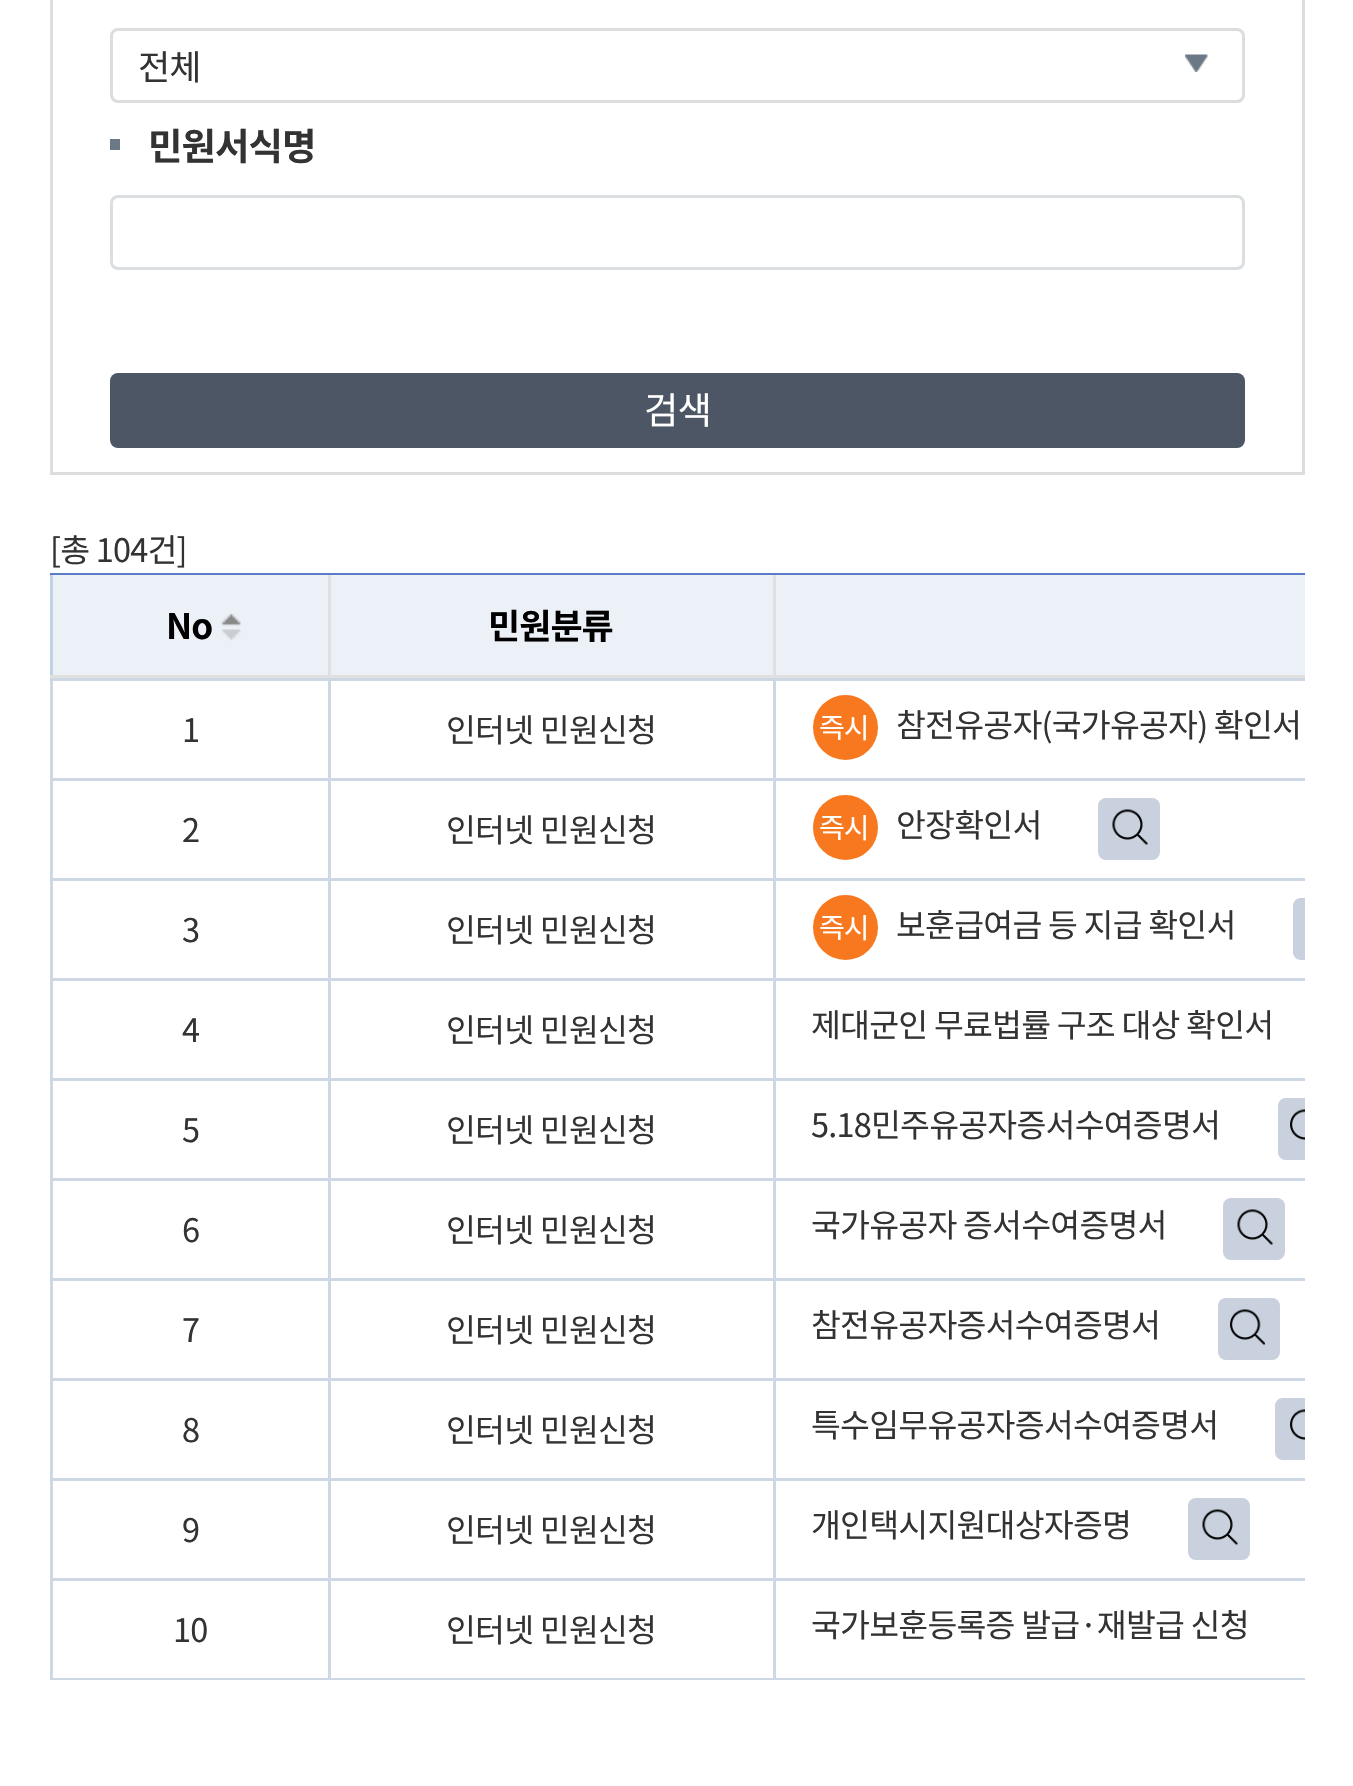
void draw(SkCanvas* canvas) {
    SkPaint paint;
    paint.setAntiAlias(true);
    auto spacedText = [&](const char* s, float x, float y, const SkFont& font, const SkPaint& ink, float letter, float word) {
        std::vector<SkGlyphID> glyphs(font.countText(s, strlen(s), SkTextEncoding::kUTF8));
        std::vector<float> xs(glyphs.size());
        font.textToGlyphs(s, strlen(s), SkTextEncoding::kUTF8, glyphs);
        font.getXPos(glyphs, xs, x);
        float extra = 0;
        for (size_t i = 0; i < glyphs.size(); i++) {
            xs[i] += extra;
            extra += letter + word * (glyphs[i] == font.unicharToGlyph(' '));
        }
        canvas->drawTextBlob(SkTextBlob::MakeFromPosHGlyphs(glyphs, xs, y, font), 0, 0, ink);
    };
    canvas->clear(0xFFFFFFFF);
    paint.setStyle(SkPaint::kStroke_Style);
    paint.setStrokeWidth(3);
    paint.setColor(0xFFDDDDDD);
    canvas->drawRect(SkRect::MakeXYWH(51.5f, -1.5f, 1252, 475), paint);
    canvas->drawImageRect(SkImages::DeferredFromEncodedData(SkData::MakeFromFileName("img1.png")), SkRect::MakeXYWH(1185, 54, 23, 18), SkSamplingOptions());
    canvas->drawRoundRect(SkRect::MakeXYWH(111.5f, 29.5f, 1132, 72), 6.5f, 6.5f, paint);
    SkFont font1(fontMgr->matchFamilyStyle("Noto Sans KR", SkFontStyle::Normal()), 35);
    font1.setSubpixel(true);
    paint.setStyle(SkPaint::kFill_Style);
    paint.setColor(0xFF333333);
    spacedText("전체", 138, 80, font1, paint, -1, 0);
    paint.setColor(0xFF6B7986);
    canvas->drawRect(SkRect::MakeXYWH(110, 139, 10, 11), paint);
    SkFont font2(fontMgr->matchFamilyStyle("Noto Sans KR", SkFontStyle::Bold()), 37.5f);
    font2.setSubpixel(true);
    paint.setColor(0xFF333333);
    spacedText("민원서식명", 148, 160, font2, paint, -1, 0);
    paint.setStyle(SkPaint::kStroke_Style);
    paint.setColor(0xFFDBDEE0);
    canvas->drawRoundRect(SkRect::MakeXYWH(111.5f, 196.5f, 1132, 72), 6.5f, 6.5f, paint);
    paint.setStyle(SkPaint::kFill_Style);
    paint.setColor(0xFF4D5664);
    canvas->drawRoundRect(SkRect::MakeXYWH(110, 373, 1135, 75), 8, 8, paint);
    SkFont font3(fontMgr->matchFamilyStyle("Noto Sans KR", SkFontStyle::Normal()), 37.5f);
    font3.setSubpixel(true);
    paint.setColor(0xFFFFFFFF);
    spacedText("검색", 644, 424, font3, paint, -1, 0);
    SkFont font4(fontMgr->matchFamilyStyle("Noto Sans KR", SkFontStyle::Normal()), 32.5f);
    font4.setSubpixel(true);
    paint.setColor(0xFF333333);
    spacedText("[총 104건]", 50, 562, font4, paint, -0.8f, 0);
    paint.setColor(0xFF5B7AC8);
    canvas->drawRect(SkRect::MakeXYWH(50, 573, 1255, 2), paint);
    paint.setColor(0xFFECF1F7);
    canvas->drawRect(SkRect::MakeXYWH(53, 575, 1252, 100), paint);
    paint.setColor(0xFFC0D2E4);
    canvas->drawRect(SkRect::MakeXYWH(50, 575, 3, 103), paint);
    paint.setColor(0xFFE0E0E0);
    canvas->drawRect(SkRect::MakeXYWH(773, 675, 532, 3), paint);
    canvas->drawRect(SkRect::MakeXYWH(773, 575, 3, 103), paint);
    canvas->drawRect(SkRect::MakeXYWH(328, 675, 447, 3), paint);
    canvas->drawRect(SkRect::MakeXYWH(328, 575, 3, 103), paint);
    canvas->drawRect(SkRect::MakeXYWH(50, 675, 280, 3), paint);
    SkFont font5(fontMgr->matchFamilyStyle("Noto Sans KR", SkFontStyle::Bold()), 35);
    font5.setSubpixel(true);
    paint.setColor(0xFF000000);
    spacedText("No", 166, 639, font5, paint, -1, 0);
    canvas->drawImageRect(SkImages::DeferredFromEncodedData(SkData::MakeFromFileName("img2.png")), SkRect::MakeXYWH(221, 613, 20, 13), SkSamplingOptions());
    canvas->drawImageRect(SkImages::DeferredFromEncodedData(SkData::MakeFromFileName("img3.png")), SkRect::MakeXYWH(222, 629, 19, 12), SkSamplingOptions());
    spacedText("민원분류", 488, 639, font5, paint, -1, 0);
    paint.setColor(0xFFCED8E5);
    canvas->drawRect(SkRect::MakeXYWH(50, 678, 3, 1002), paint);
    canvas->drawRect(SkRect::MakeXYWH(773, 678, 532, 3), paint);
    canvas->drawRect(SkRect::MakeXYWH(773, 778, 532, 3), paint);
    canvas->drawRect(SkRect::MakeXYWH(773, 878, 532, 3), paint);
    canvas->drawRect(SkRect::MakeXYWH(773, 978, 532, 3), paint);
    canvas->drawRect(SkRect::MakeXYWH(773, 1078, 532, 3), paint);
    canvas->drawRect(SkRect::MakeXYWH(773, 1178, 532, 3), paint);
    canvas->drawRect(SkRect::MakeXYWH(773, 1278, 532, 3), paint);
    canvas->drawRect(SkRect::MakeXYWH(773, 1378, 532, 3), paint);
    canvas->drawRect(SkRect::MakeXYWH(773, 1478, 532, 3), paint);
    canvas->drawRect(SkRect::MakeXYWH(773, 1578, 532, 3), paint);
    canvas->drawRect(SkRect::MakeXYWH(773, 1678, 532, 2), paint);
    canvas->drawRect(SkRect::MakeXYWH(773, 1578, 3, 102), paint);
    canvas->drawRect(SkRect::MakeXYWH(328, 1578, 447, 3), paint);
    canvas->drawRect(SkRect::MakeXYWH(773, 1478, 3, 102), paint);
    canvas->drawRect(SkRect::MakeXYWH(328, 1478, 447, 3), paint);
    canvas->drawRect(SkRect::MakeXYWH(773, 1378, 3, 102), paint);
    canvas->drawRect(SkRect::MakeXYWH(328, 1378, 447, 3), paint);
    canvas->drawRect(SkRect::MakeXYWH(773, 1278, 3, 102), paint);
    canvas->drawRect(SkRect::MakeXYWH(328, 1278, 447, 3), paint);
    canvas->drawRect(SkRect::MakeXYWH(773, 1178, 3, 102), paint);
    canvas->drawRect(SkRect::MakeXYWH(328, 1178, 447, 3), paint);
    canvas->drawRect(SkRect::MakeXYWH(773, 1078, 3, 102), paint);
    canvas->drawRect(SkRect::MakeXYWH(328, 1078, 447, 3), paint);
    canvas->drawRect(SkRect::MakeXYWH(773, 978, 3, 102), paint);
    canvas->drawRect(SkRect::MakeXYWH(328, 978, 447, 3), paint);
    canvas->drawRect(SkRect::MakeXYWH(773, 878, 3, 102), paint);
    canvas->drawRect(SkRect::MakeXYWH(328, 878, 447, 3), paint);
    canvas->drawRect(SkRect::MakeXYWH(773, 778, 3, 102), paint);
    canvas->drawRect(SkRect::MakeXYWH(328, 778, 447, 3), paint);
    canvas->drawRect(SkRect::MakeXYWH(773, 678, 3, 102), paint);
    canvas->drawRect(SkRect::MakeXYWH(328, 678, 447, 3), paint);
    canvas->drawRect(SkRect::MakeXYWH(328, 1678, 447, 2), paint);
    canvas->drawRect(SkRect::MakeXYWH(328, 1578, 3, 102), paint);
    canvas->drawRect(SkRect::MakeXYWH(50, 1578, 280, 3), paint);
    canvas->drawRect(SkRect::MakeXYWH(328, 1478, 3, 102), paint);
    canvas->drawRect(SkRect::MakeXYWH(50, 1478, 280, 3), paint);
    canvas->drawRect(SkRect::MakeXYWH(328, 1378, 3, 102), paint);
    canvas->drawRect(SkRect::MakeXYWH(50, 1378, 280, 3), paint);
    canvas->drawRect(SkRect::MakeXYWH(328, 1278, 3, 102), paint);
    canvas->drawRect(SkRect::MakeXYWH(50, 1278, 280, 3), paint);
    canvas->drawRect(SkRect::MakeXYWH(328, 1178, 3, 102), paint);
    canvas->drawRect(SkRect::MakeXYWH(50, 1178, 280, 3), paint);
    canvas->drawRect(SkRect::MakeXYWH(328, 1078, 3, 102), paint);
    canvas->drawRect(SkRect::MakeXYWH(50, 1078, 280, 3), paint);
    canvas->drawRect(SkRect::MakeXYWH(328, 978, 3, 102), paint);
    canvas->drawRect(SkRect::MakeXYWH(50, 978, 280, 3), paint);
    canvas->drawRect(SkRect::MakeXYWH(328, 878, 3, 102), paint);
    canvas->drawRect(SkRect::MakeXYWH(50, 878, 280, 3), paint);
    canvas->drawRect(SkRect::MakeXYWH(328, 778, 3, 102), paint);
    canvas->drawRect(SkRect::MakeXYWH(50, 778, 280, 3), paint);
    canvas->drawRect(SkRect::MakeXYWH(328, 678, 3, 102), paint);
    canvas->drawRect(SkRect::MakeXYWH(50, 678, 280, 3), paint);
    paint.setColor(0xFF333333);
    spacedText("1", 182, 742, font4, paint, -0.8f, 0);
    spacedText("인터넷 민원신청", 446, 742, font4, paint, -0.8f, 0);
    paint.setColor(0xFFF7781E);
    canvas->drawCircle(845.5f, 727.5f, 32.5f, paint);
    SkFont font6(fontMgr->matchFamilyStyle("Noto Sans KR", SkFontStyle::Normal()), 28);
    font6.setSubpixel(true);
    paint.setColor(0xFFFFFFFF);
    spacedText("즉시", 819, 738, font6, paint, -1, 0);
    paint.setColor(0xFF333333);
    spacedText("참전유공자(국가유공자) 확인서", 896, 737, font4, paint, -0.8f, 0);
    spacedText("2", 182, 842, font4, paint, -0.8f, 0);
    spacedText("인터넷 민원신청", 446, 842, font4, paint, -0.8f, 0);
    paint.setColor(0xFFF7781E);
    canvas->drawCircle(845.5f, 827.5f, 32.5f, paint);
    paint.setColor(0xFFFFFFFF);
    spacedText("즉시", 819, 838, font6, paint, -1, 0);
    paint.setColor(0xFF333333);
    spacedText("안장확인서", 896, 837, font4, paint, -0.8f, 0);
    paint.setColor(0xFFC9D1DE);
    canvas->drawRoundRect(SkRect::MakeXYWH(1098, 798, 62, 62), 8, 8, paint);
    canvas->drawImageRect(SkImages::DeferredFromEncodedData(SkData::MakeFromFileName("img4.png")), SkRect::MakeXYWH(1112, 809, 36, 36), SkSamplingOptions());
    paint.setColor(0xFF333333);
    spacedText("3", 182, 942, font4, paint, -0.8f, 0);
    spacedText("인터넷 민원신청", 446, 942, font4, paint, -0.8f, 0);
    paint.setColor(0xFFF7781E);
    canvas->drawCircle(845.5f, 927.5f, 32.5f, paint);
    paint.setColor(0xFFFFFFFF);
    spacedText("즉시", 819, 938, font6, paint, -1, 0);
    paint.setColor(0xFF333333);
    spacedText("보훈급여금 등 지급 확인서", 896, 937, font4, paint, -0.8f, 0);
    paint.setColor(0xFFC9D1DE);
    canvas->drawPath(SkPathBuilder().moveTo(1301, 898).lineTo(1305, 898).lineTo(1305, 960).lineTo(1301, 960).cubicTo(1296.5f, 960, 1293, 956.5f, 1293, 952).lineTo(1293, 906).cubicTo(1293, 901.5f, 1296.5f, 898, 1301, 898).close().detach(), paint);
    paint.setColor(0xFF333333);
    spacedText("4", 182, 1042, font4, paint, -0.8f, 0);
    spacedText("인터넷 민원신청", 446, 1042, font4, paint, -0.8f, 0);
    spacedText("제대군인 무료법률 구조 대상 확인서", 811, 1037, font4, paint, -0.8f, 0);
    spacedText("5", 182, 1142, font4, paint, -0.8f, 0);
    spacedText("인터넷 민원신청", 446, 1142, font4, paint, -0.8f, 0);
    spacedText("5.18민주유공자증서수여증명서", 811, 1137, font4, paint, -0.8f, 0);
    paint.setColor(0xFFC9D1DE);
    canvas->drawPath(SkPathBuilder().moveTo(1286, 1098).lineTo(1305, 1098).lineTo(1305, 1160).lineTo(1286, 1160).cubicTo(1281.5f, 1160, 1278, 1156.5f, 1278, 1152).lineTo(1278, 1106).cubicTo(1278, 1101.5f, 1281.5f, 1098, 1286, 1098).close().detach(), paint);
    canvas->drawImageRect(SkImages::DeferredFromEncodedData(SkData::MakeFromFileName("img5.png")), SkRect::MakeXYWH(1290, 1109, 15, 31), SkSamplingOptions());
    paint.setColor(0xFF333333);
    spacedText("6", 182, 1242, font4, paint, -0.8f, 0);
    spacedText("인터넷 민원신청", 446, 1242, font4, paint, -0.8f, 0);
    spacedText("국가유공자 증서수여증명서", 811, 1237, font4, paint, -0.8f, 0);
    paint.setColor(0xFFC9D1DE);
    canvas->drawRoundRect(SkRect::MakeXYWH(1223, 1198, 62, 62), 8, 8, paint);
    canvas->drawImageRect(SkImages::DeferredFromEncodedData(SkData::MakeFromFileName("img4.png")), SkRect::MakeXYWH(1237, 1209, 36, 36), SkSamplingOptions());
    paint.setColor(0xFF333333);
    spacedText("7", 182, 1342, font4, paint, -0.8f, 0);
    spacedText("인터넷 민원신청", 446, 1342, font4, paint, -0.8f, 0);
    spacedText("참전유공자증서수여증명서", 811, 1337, font4, paint, -0.8f, 0);
    paint.setColor(0xFFC9D1DE);
    canvas->drawRoundRect(SkRect::MakeXYWH(1218, 1298, 62, 62), 8, 8, paint);
    canvas->drawImageRect(SkImages::DeferredFromEncodedData(SkData::MakeFromFileName("img6.png")), SkRect::MakeXYWH(1230, 1309, 35, 36), SkSamplingOptions());
    paint.setColor(0xFF333333);
    spacedText("8", 182, 1442, font4, paint, -0.8f, 0);
    spacedText("인터넷 민원신청", 446, 1442, font4, paint, -0.8f, 0);
    spacedText("특수임무유공자증서수여증명서", 811, 1437, font4, paint, -0.8f, 0);
    paint.setColor(0xFFC9D1DE);
    canvas->drawPath(SkPathBuilder().moveTo(1283, 1398).lineTo(1305, 1398).lineTo(1305, 1460).lineTo(1283, 1460).cubicTo(1278.5f, 1460, 1275, 1456.5f, 1275, 1452).lineTo(1275, 1406).cubicTo(1275, 1401.5f, 1278.5f, 1398, 1283, 1398).close().detach(), paint);
    canvas->drawImageRect(SkImages::DeferredFromEncodedData(SkData::MakeFromFileName("img5.png")), SkRect::MakeXYWH(1290, 1409, 15, 31), SkSamplingOptions());
    paint.setColor(0xFF333333);
    spacedText("9", 182, 1542, font4, paint, -0.8f, 0);
    spacedText("인터넷 민원신청", 446, 1542, font4, paint, -0.8f, 0);
    spacedText("개인택시지원대상자증명", 811, 1537, font4, paint, -0.8f, 0);
    paint.setColor(0xFFC9D1DE);
    canvas->drawRoundRect(SkRect::MakeXYWH(1188, 1498, 62, 62), 8, 8, paint);
    canvas->drawImageRect(SkImages::DeferredFromEncodedData(SkData::MakeFromFileName("img4.png")), SkRect::MakeXYWH(1202, 1509, 36, 36), SkSamplingOptions());
    paint.setColor(0xFFCED8E5);
    canvas->drawRect(SkRect::MakeXYWH(50, 1678, 280, 2), paint);
    paint.setColor(0xFF333333);
    spacedText("10", 173, 1642, font4, paint, -0.8f, 0);
    spacedText("인터넷 민원신청", 446, 1642, font4, paint, -0.8f, 0);
    spacedText("국가보훈등록증 발급·재발급 신청", 811, 1637, font4, paint, -0.8f, 0);
}
